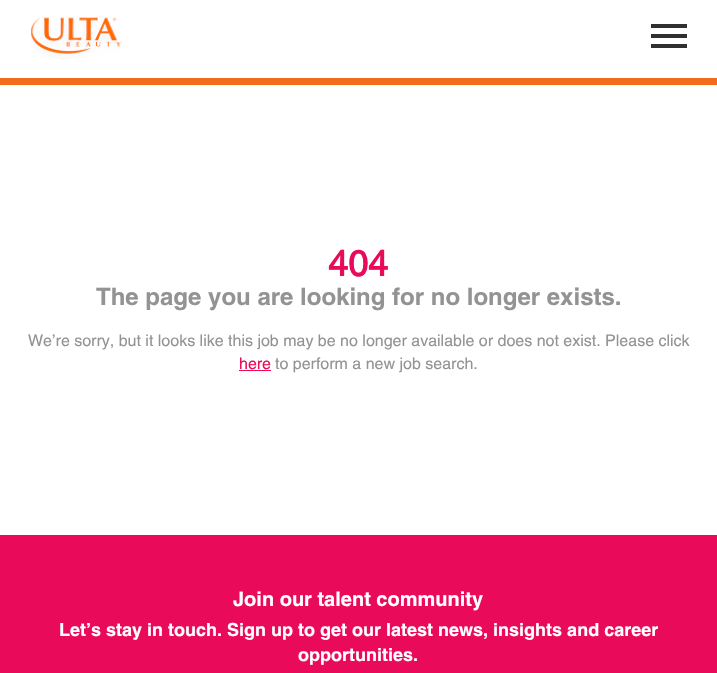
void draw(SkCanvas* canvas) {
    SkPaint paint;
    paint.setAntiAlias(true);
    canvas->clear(0xFFFFFFFF);
    paint.setColor(0xFFF26B1C);
    canvas->drawRect(SkRect::MakeXYWH(0, 78, 717, 7), paint);
    canvas->drawImageRect(SkImages::DeferredFromEncodedData(SkData::MakeFromFileName("img1.png")), SkRect::MakeXYWH(31, 17, 90, 42), SkSamplingOptions());
    paint.setColor(0xFF303030);
    canvas->drawRect(SkRect::MakeXYWH(651, 24, 36, 4), paint);
    canvas->drawRect(SkRect::MakeXYWH(651, 34, 36, 4), paint);
    canvas->drawRect(SkRect::MakeXYWH(651, 44, 36, 4), paint);
    SkFont font1(fontMgr->matchFamilyStyle("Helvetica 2", SkFontStyle::Bold()), 36);
    font1.setSubpixel(true);
    paint.setColor(0xFFE90B5A);
    canvas->drawString("404", 328, 276, font1, paint);
    SkFont font2(fontMgr->matchFamilyStyle("Helvetica", SkFontStyle::Bold()), 24);
    font2.setSubpixel(true);
    paint.setColor(0xFF939394);
    canvas->drawString("The page you are looking for no longer exists.", 96, 305, font2, paint);
    SkFont font3(fontMgr->matchFamilyStyle("Helvetica", SkFontStyle::Normal()), 16);
    font3.setSubpixel(true);
    canvas->drawString("We’re sorry, but it looks like this job may be no longer available or does not exist. Please click", 28, 346, font3, paint);
    paint.setColor(0xFFE90B5A);
    canvas->drawString("here", 239, 369, font3, paint);
    canvas->drawRect(SkRect::MakeXYWH(239, 370, 32, 1), paint);
    paint.setColor(0xFF939394);
    canvas->drawString("to perform a new job search.", 275, 369, font3, paint);
    paint.setColor(0xFFE90B5A);
    canvas->drawRect(SkRect::MakeXYWH(0, 535, 717, 138), paint);
    SkFont font4(fontMgr->matchFamilyStyle("Helvetica", SkFontStyle::Bold()), 20);
    font4.setSubpixel(true);
    paint.setColor(0xFFFFFFFF);
    canvas->drawString("Join our talent community", 233, 606, font4, paint);
    SkFont font5(fontMgr->matchFamilyStyle("Helvetica", SkFontStyle::Bold()), 18);
    font5.setSubpixel(true);
    canvas->drawString("Let’s stay in touch. Sign up to get our latest news, insights and career", 59, 636, font5, paint);
    canvas->drawString("opportunities.", 298, 661, font5, paint);
}
